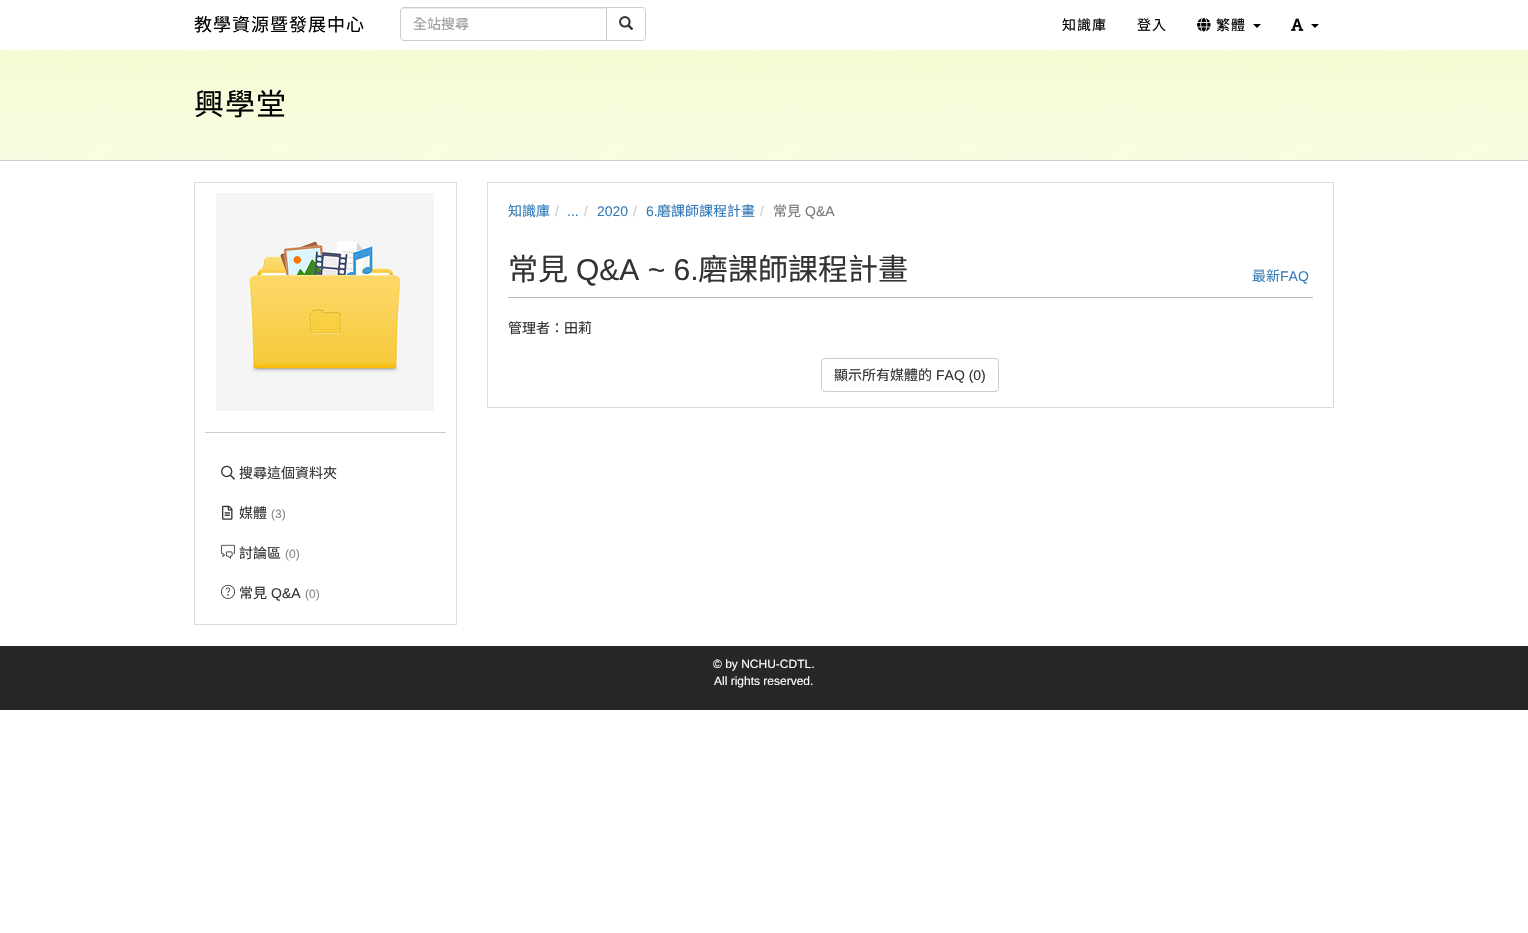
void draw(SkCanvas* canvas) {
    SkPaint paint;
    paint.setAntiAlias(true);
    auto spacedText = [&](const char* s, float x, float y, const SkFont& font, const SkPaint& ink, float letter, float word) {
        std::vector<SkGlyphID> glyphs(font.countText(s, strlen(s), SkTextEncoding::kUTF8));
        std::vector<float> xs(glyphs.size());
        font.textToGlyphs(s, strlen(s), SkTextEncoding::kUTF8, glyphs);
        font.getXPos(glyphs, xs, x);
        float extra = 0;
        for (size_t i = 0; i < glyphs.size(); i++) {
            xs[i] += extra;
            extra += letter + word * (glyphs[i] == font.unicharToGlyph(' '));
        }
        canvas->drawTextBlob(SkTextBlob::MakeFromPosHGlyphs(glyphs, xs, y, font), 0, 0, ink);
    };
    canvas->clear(0xFFFFFFFF);
    SkFont font1(fontMgr->matchFamilyStyle("Noto Sans CJK TC", SkFontStyle::Normal()), 18);
    font1.setSubpixel(true);
    paint.setColor(0xFF000000);
    spacedText("教學資源暨發展中心", 194, 31, font1, paint, 1, 0);
    paint.setColor(0xFFECECEC);
    canvas->drawPath(SkPathBuilder().moveTo(404, 9).lineTo(606, 9).lineTo(606, 8).lineTo(403, 8).cubicTo(401, 9, 401, 10, 401, 12).cubicTo(401, 10, 402, 9, 404, 9).close().detach(), paint);
    paint.setStyle(SkPaint::kStroke_Style);
    paint.setStrokeWidth(1);
    paint.setColor(0xFFCCCCCC);
    canvas->drawPath(SkPathBuilder().moveTo(404, 7.5f).lineTo(606.5f, 7.5f).lineTo(606.5f, 40.5f).lineTo(404, 40.5f).cubicTo(402, 40.5f, 400.5f, 39, 400.5f, 37).lineTo(400.5f, 11).cubicTo(400.5f, 9, 402, 7.5f, 404, 7.5f).close().detach(), paint);
    SkFont font2(fontMgr->matchFamilyStyle("Noto Sans CJK TC", SkFontStyle::Normal()), 14);
    font2.setSubpixel(true);
    paint.setStyle(SkPaint::kFill_Style);
    paint.setColor(0xFF999999);
    canvas->drawString("全站搜尋", 413, 29, font2, paint);
    paint.setColor(0xFFFFFFFF);
    canvas->drawPath(SkPathBuilder().moveTo(606.5f, 7.5f).lineTo(642, 7.5f).cubicTo(644, 7.5f, 645.5f, 9, 645.5f, 11).lineTo(645.5f, 37).cubicTo(645.5f, 39, 644, 40.5f, 642, 40.5f).lineTo(606.5f, 40.5f).close().detach(), paint);
    paint.setStyle(SkPaint::kStroke_Style);
    paint.setColor(0xFFCCCCCC);
    canvas->drawPath(SkPathBuilder().moveTo(606.5f, 7.5f).lineTo(642, 7.5f).cubicTo(644, 7.5f, 645.5f, 9, 645.5f, 11).lineTo(645.5f, 37).cubicTo(645.5f, 39, 644, 40.5f, 642, 40.5f).lineTo(606.5f, 40.5f).close().detach(), paint);
    canvas->drawImageRect(SkImages::DeferredFromEncodedData(SkData::MakeFromFileName("img1.png")), SkRect::MakeXYWH(619, 16, 15, 14), SkSamplingOptions());
    paint.setStyle(SkPaint::kFill_Style);
    paint.setColor(0xFF000000);
    spacedText("知識庫", 1062, 30, font2, paint, 1, 0);
    spacedText("登入", 1137, 30, font2, paint, 1, 0);
    canvas->drawImageRect(SkImages::DeferredFromEncodedData(SkData::MakeFromFileName("img2.png")), SkRect::MakeXYWH(1197, 18, 14, 14), SkSamplingOptions());
    spacedText("繁體", 1216, 30, font2, paint, 1, 0);
    canvas->drawPath(SkPathBuilder().moveTo(1253, 24).lineTo(1261, 24).lineTo(1257, 28).close().detach(), paint);
    canvas->drawImageRect(SkImages::DeferredFromEncodedData(SkData::MakeFromFileName("img3.png")), SkRect::MakeXYWH(1291, 18, 13, 13), SkSamplingOptions());
    canvas->drawPath(SkPathBuilder().moveTo(1311, 24).lineTo(1319, 24).lineTo(1315, 28).close().detach(), paint);
    canvas->drawImageRect(SkImages::DeferredFromEncodedData(SkData::MakeFromFileName("img4.png")), SkRect::MakeXYWH(0, 50, 1528, 110), SkSamplingOptions());
    paint.setColor(0xFFCCCCCC);
    canvas->drawRect(SkRect::MakeXYWH(0, 160, 1528, 1), paint);
    SkFont font3(fontMgr->matchFamilyStyle("Noto Sans CJK TC", SkFontStyle::Normal()), 30);
    font3.setSubpixel(true);
    paint.setColor(0xFF000000);
    spacedText("興學堂", 194, 115, font3, paint, 1, 0);
    paint.setStyle(SkPaint::kStroke_Style);
    paint.setColor(0xFFDDDDDD);
    canvas->drawRect(SkRect::MakeXYWH(487.5f, 182.5f, 846, 225), paint);
    paint.setStyle(SkPaint::kFill_Style);
    paint.setColor(0xFF337AB7);
    canvas->drawString("知識庫", 508, 216, font2, paint);
    SkFont font4(fontMgr->matchFamilyStyle("Liberation Sans", SkFontStyle::Normal()), 14);
    font4.setSubpixel(true);
    paint.setColor(0xFFCCCCCC);
    canvas->drawString("/", 555, 216, font4, paint);
    paint.setColor(0xFF337AB7);
    canvas->drawString("...", 567, 216, font4, paint);
    paint.setColor(0xFFCCCCCC);
    canvas->drawString("/", 584, 216, font4, paint);
    paint.setColor(0xFF337AB7);
    canvas->drawString("2020", 597, 216, font4, paint);
    paint.setColor(0xFFCCCCCC);
    canvas->drawString("/", 633, 216, font4, paint);
    paint.setColor(0xFF337AB7);
    canvas->drawString("6.", 646, 216, font4, paint);
    canvas->drawString("磨課師課程計畫", 657, 216, font2, paint);
    paint.setColor(0xFFCCCCCC);
    canvas->drawString("/", 760, 216, font4, paint);
    paint.setColor(0xFF777777);
    canvas->drawString("常見", 773, 216, font2, paint);
    canvas->drawString("Q&A", 805, 216, font4, paint);
    paint.setColor(0xFFBBBBBB);
    canvas->drawRect(SkRect::MakeXYWH(508, 297, 805, 1), paint);
    paint.setColor(0xFF333333);
    canvas->drawString("常見", 508, 280, font3, paint);
    SkFont font5(fontMgr->matchFamilyStyle("Liberation Sans", SkFontStyle::Normal()), 30);
    font5.setSubpixel(true);
    canvas->drawString("Q&A ~ 6.", 576, 280, font5, paint);
    canvas->drawString("磨課師課程計畫", 698, 280, font3, paint);
    paint.setColor(0xFF337AB7);
    canvas->drawString("最新", 1252, 281, font2, paint);
    canvas->drawString("FAQ", 1280, 281, font4, paint);
    paint.setColor(0xFF333333);
    canvas->drawString("管理者：田莉", 508, 333, font2, paint);
    paint.setStyle(SkPaint::kStroke_Style);
    paint.setColor(0xFFCCCCCC);
    canvas->drawRoundRect(SkRect::MakeXYWH(821.5f, 358.5f, 177, 33), 3.5f, 3.5f, paint);
    paint.setStyle(SkPaint::kFill_Style);
    paint.setColor(0xFF333333);
    canvas->drawString("顯示所有媒體的", 834, 380, font2, paint);
    canvas->drawString("FAQ (0)", 936, 380, font4, paint);
    paint.setStyle(SkPaint::kStroke_Style);
    paint.setColor(0xFFDDDDDD);
    canvas->drawRect(SkRect::MakeXYWH(194.5f, 182.5f, 262, 442), paint);
    canvas->drawImageRect(SkImages::DeferredFromEncodedData(SkData::MakeFromFileName("img5.png")), SkRect::MakeXYWH(216, 193, 218, 218), SkSamplingOptions());
    paint.setStyle(SkPaint::kFill_Style);
    paint.setColor(0xFFCCCCCC);
    canvas->drawRect(SkRect::MakeXYWH(205, 432, 241, 1), paint);
    canvas->drawImageRect(SkImages::DeferredFromEncodedData(SkData::MakeFromFileName("img6.png")), SkRect::MakeXYWH(221, 465, 14, 15), SkSamplingOptions());
    paint.setColor(0xFF333333);
    canvas->drawString("搜尋這個資料夾", 239, 478, font2, paint);
    canvas->drawImageRect(SkImages::DeferredFromEncodedData(SkData::MakeFromFileName("img7.png")), SkRect::MakeXYWH(222, 505, 11, 15), SkSamplingOptions());
    canvas->drawString("媒體", 239, 518, font2, paint);
    SkFont font6(fontMgr->matchFamilyStyle("Liberation Sans", SkFontStyle::Normal()), 12);
    font6.setSubpixel(true);
    paint.setColor(0xFF888888);
    canvas->drawString("(3)", 271, 518, font6, paint);
    canvas->drawImageRect(SkImages::DeferredFromEncodedData(SkData::MakeFromFileName("img8.png")), SkRect::MakeXYWH(221, 544, 14, 15), SkSamplingOptions());
    paint.setColor(0xFF333333);
    canvas->drawString("討論區", 239, 558, font2, paint);
    paint.setColor(0xFF888888);
    canvas->drawString("(0)", 285, 558, font6, paint);
    canvas->drawImageRect(SkImages::DeferredFromEncodedData(SkData::MakeFromFileName("img9.png")), SkRect::MakeXYWH(221, 584, 14, 15), SkSamplingOptions());
    paint.setColor(0xFF333333);
    canvas->drawString("常見", 239, 598, font2, paint);
    canvas->drawString("Q&A", 271, 598, font4, paint);
    paint.setColor(0xFF888888);
    canvas->drawString("(0)", 305, 598, font6, paint);
    paint.setColor(0xFF272727);
    canvas->drawRect(SkRect::MakeXYWH(0, 646, 1528, 64), paint);
    paint.setColor(0xFFFFFFFF);
    canvas->drawString("© by NCHU-CDTL.", 713, 668, font6, paint);
    canvas->drawString("All rights reserved.", 714, 685, font6, paint);
}
